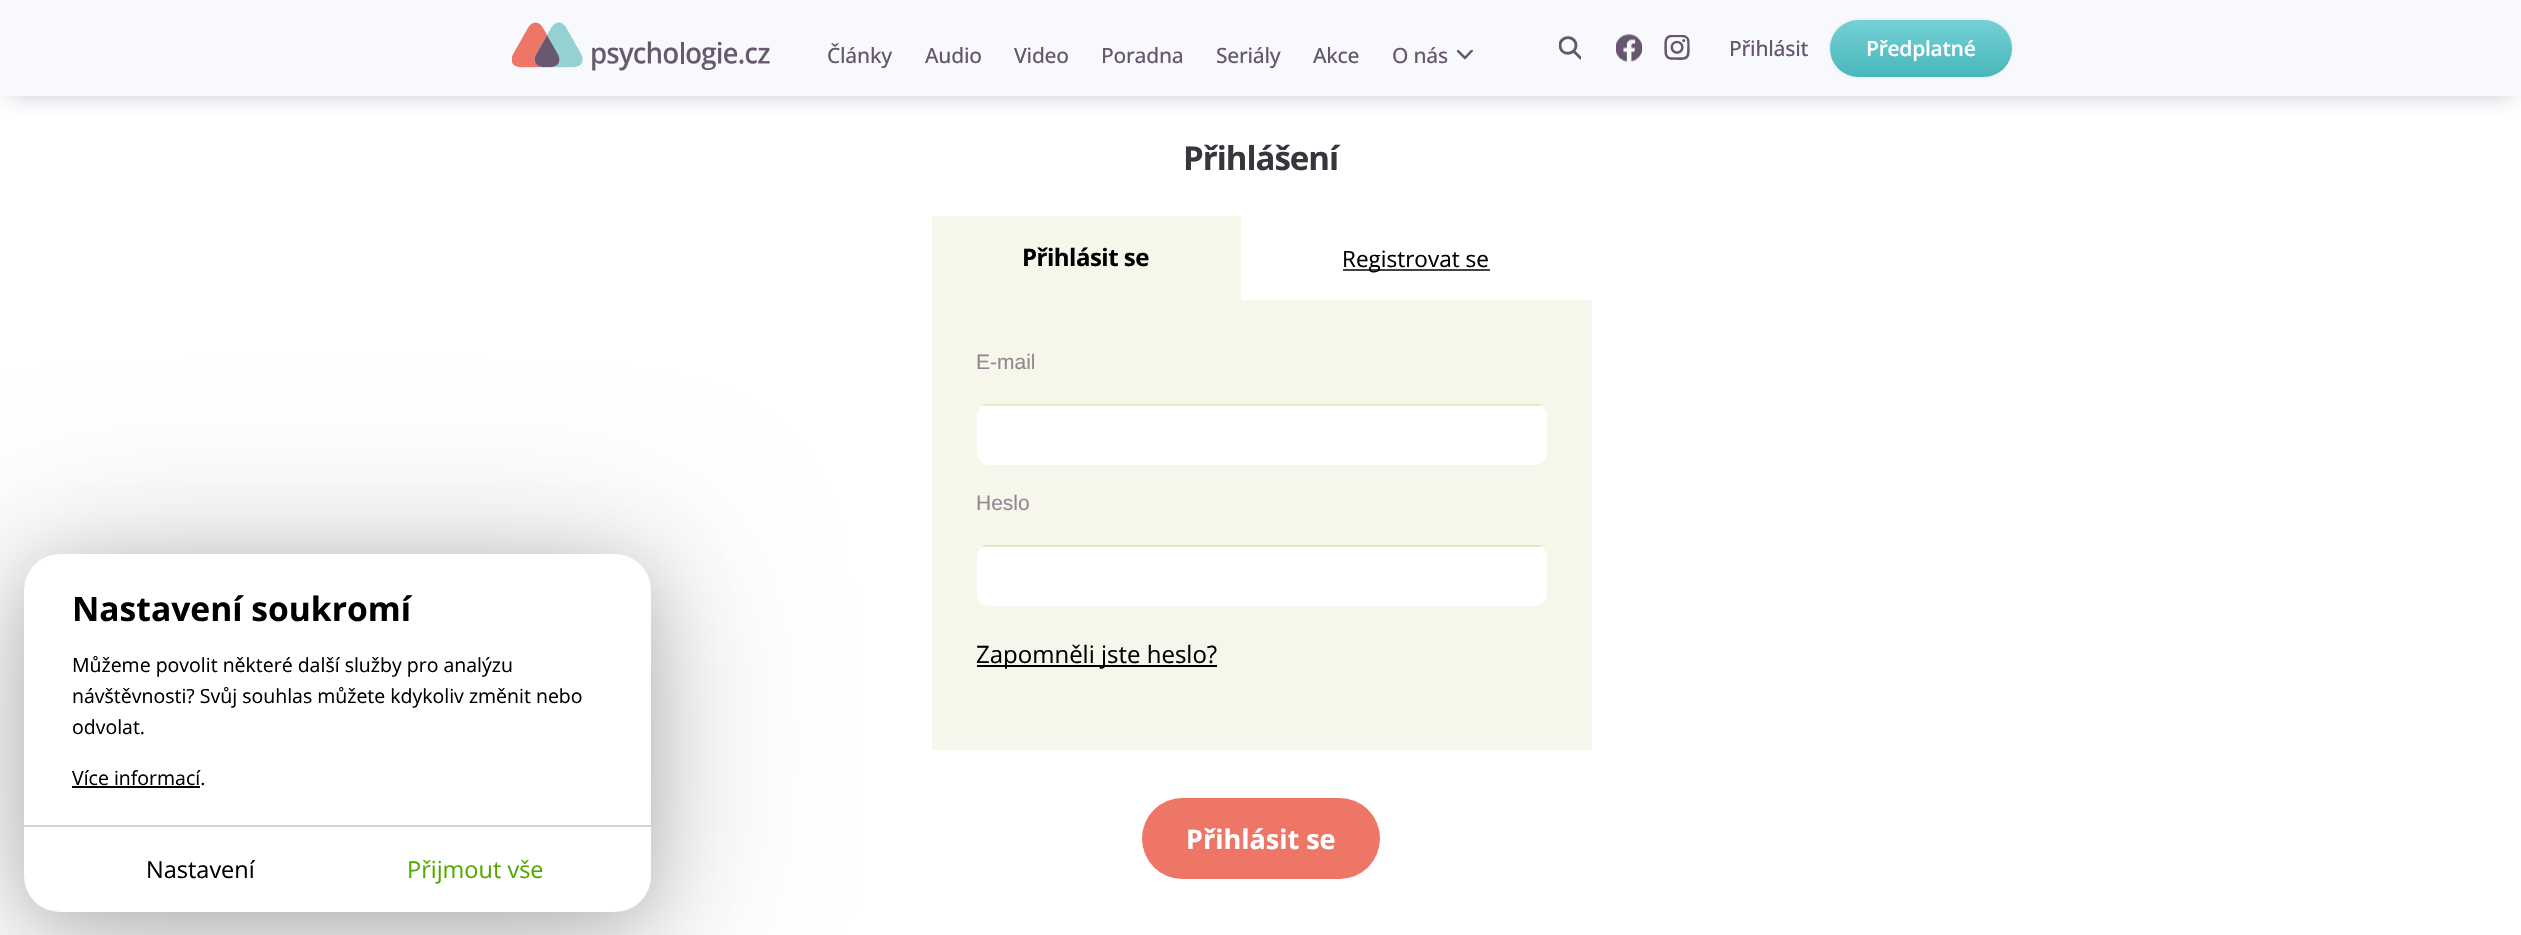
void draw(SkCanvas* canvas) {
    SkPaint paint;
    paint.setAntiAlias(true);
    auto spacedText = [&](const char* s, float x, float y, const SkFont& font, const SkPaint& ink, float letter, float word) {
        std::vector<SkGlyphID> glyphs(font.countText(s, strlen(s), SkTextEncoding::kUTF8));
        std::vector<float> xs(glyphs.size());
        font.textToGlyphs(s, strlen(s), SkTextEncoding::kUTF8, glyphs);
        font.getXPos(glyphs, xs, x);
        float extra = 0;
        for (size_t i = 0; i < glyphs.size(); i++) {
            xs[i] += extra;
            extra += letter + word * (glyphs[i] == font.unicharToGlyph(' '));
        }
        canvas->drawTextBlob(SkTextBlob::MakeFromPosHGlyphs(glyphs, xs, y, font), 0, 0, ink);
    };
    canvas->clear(0xFFFFFFFF);
    paint.setColor(0x3D18274B);
    paint.setMaskFilter(SkMaskFilter::MakeBlur(kNormal_SkBlurStyle, 10.5f));
    canvas->drawRect(SkRect::MakeXYWH(9, 18, 2504, 78), paint);
    paint.setMaskFilter(nullptr);
    paint.setColor(0xFFF8F9FC);
    canvas->drawRect(SkRect::MakeXYWH(0, 0, 2521, 96), paint);
    canvas->drawImageRect(SkImages::DeferredFromEncodedData(SkData::MakeFromFileName("img1.png")), SkRect::MakeXYWH(512, 22, 258, 49), SkSamplingOptions());
    SkFont font1(fontMgr->matchFamilyStyle("Open Sans", SkFontStyle(500, SkFontStyle::kNormal_Width, SkFontStyle::kUpright_Slant)), 21);
    font1.setSubpixel(true);
    paint.setColor(0xFF66576F);
    spacedText("Články", 827, 63, font1, paint, -0.25f, 0);
    spacedText("Audio", 925, 63, font1, paint, -0.25f, 0);
    spacedText("Video", 1014, 63, font1, paint, -0.25f, 0);
    spacedText("Poradna", 1101, 63, font1, paint, -0.25f, 0);
    spacedText("Seriály", 1216, 63, font1, paint, -0.25f, 0);
    spacedText("Akce", 1313, 63, font1, paint, -0.25f, 0);
    spacedText("O nás", 1392, 63, font1, paint, -0.25f, 0);
    canvas->save();
    canvas->clipRect(SkRect::MakeXYWH(1457, 50, 16, 10));
    paint.setStyle(SkPaint::kStroke_Style);
    paint.setStrokeWidth(2.5f);
    paint.setStrokeCap(SkPaint::kRound_Cap);
    paint.setStrokeJoin(SkPaint::kRound_Join);
    canvas->drawPath(SkPathBuilder().moveTo(1472, 50.5f).lineTo(1465, 58).lineTo(1457.5f, 50.5f).detach(), paint);
    canvas->restore();
    canvas->save();
    canvas->clipRect(SkRect::MakeXYWH(1559, 36, 22, 24));
    paint.setStrokeWidth(2.9f);
    canvas->drawPath(SkPathBuilder().moveTo(1580.5f, 58).lineTo(1573.5f, 51).moveTo(1576, 45.5f).cubicTo(1576, 55.5f, 1560.5f, 56, 1560, 45.5f).cubicTo(1560, 35, 1576, 35, 1576, 45.5f).close().detach(), paint);
    canvas->restore();
    canvas->drawImageRect(SkImages::DeferredFromEncodedData(SkData::MakeFromFileName("img2.png")), SkRect::MakeXYWH(1616, 34, 27, 28), SkSamplingOptions());
    canvas->drawImageRect(SkImages::DeferredFromEncodedData(SkData::MakeFromFileName("img3.png")), SkRect::MakeXYWH(1664, 35, 26, 25), SkSamplingOptions());
    paint.setStyle(SkPaint::kFill_Style);
    spacedText("Přihlásit", 1729, 56, font1, paint, -0.25f, 0);
    paint.setColor(0x0A000000);
    paint.setMaskFilter(SkMaskFilter::MakeBlur(kNormal_SkBlurStyle, 1));
    canvas->drawRoundRect(SkRect::MakeXYWH(1830, 20, 182, 57), 28.5f, 28.5f, paint);
    paint.setMaskFilter(nullptr);
    paint.setColor(0x0F000000);
    paint.setMaskFilter(SkMaskFilter::MakeBlur(kNormal_SkBlurStyle, 1.5f));
    canvas->drawRoundRect(SkRect::MakeXYWH(1830, 20, 182, 57), 28.5f, 28.5f, paint);
    paint.setMaskFilter(nullptr);
    {
        const SkColor colors[] = {0xFF75D1D5, 0xFF47B7BB};
        const float stops[] = {0, 1};
        const SkPoint ends[] = {{1921, 19}, {1921, 77}};
        paint.setShader(SkGradientShader::MakeLinear(ends, colors, stops, 2, SkTileMode::kClamp));
        paint.setAlpha(255);
    }
    canvas->drawRoundRect(SkRect::MakeXYWH(1830, 20, 182, 57), 28.5f, 28.5f, paint);
    SkFont font2(fontMgr->matchFamilyStyle("Open Sans", SkFontStyle(600, SkFontStyle::kNormal_Width, SkFontStyle::kUpright_Slant)), 21);
    font2.setSubpixel(true);
    paint.setShader(nullptr);
    paint.setColor(0xFFFFFFFF);
    spacedText("Předplatné", 1866, 56, font2, paint, -0.25f, 0);
    paint.setColor(0x33000000);
    paint.setMaskFilter(SkMaskFilter::MakeBlur(kNormal_SkBlurStyle, 88));
    canvas->drawRoundRect(SkRect::MakeXYWH(24, 569, 627, 358), 36, 36, paint);
    paint.setMaskFilter(nullptr);
    paint.setMaskFilter(SkMaskFilter::MakeBlur(kNormal_SkBlurStyle, 35));
    canvas->drawRoundRect(SkRect::MakeXYWH(24, 569, 627, 358), 36, 36, paint);
    paint.setMaskFilter(nullptr);
    paint.setColor(0xFFFFFFFF);
    canvas->drawRoundRect(SkRect::MakeXYWH(24, 554, 627, 358), 36, 36, paint);
    SkFont font3(fontMgr->matchFamilyStyle("Open Sans", SkFontStyle::Bold()), 33.6f);
    font3.setSubpixel(true);
    paint.setColor(0xFF000000);
    canvas->drawString("Nastavení soukromí", 72, 621, font3, paint);
    SkFont font4(fontMgr->matchFamilyStyle("Open Sans", SkFontStyle::Normal()), 19.5f);
    font4.setSubpixel(true);
    canvas->drawString("Můžeme povolit některé další služby pro analýzu", 72, 672, font4, paint);
    canvas->drawString("návštěvnosti? Svůj souhlas můžete kdykoliv změnit nebo", 72, 703, font4, paint);
    canvas->drawString("odvolat.", 72, 734, font4, paint);
    canvas->drawString("Více informací.", 72, 785, font4, paint);
    canvas->drawRect(SkRect::MakeXYWH(72, 786, 128, 2), paint);
    paint.setColor(0xFFD3D3D3);
    canvas->drawRect(SkRect::MakeXYWH(24, 825, 627, 2), paint);
    SkFont font5(fontMgr->matchFamilyStyle("Open Sans", SkFontStyle::Normal()), 23.5f);
    font5.setSubpixel(true);
    paint.setColor(0xFF000000);
    canvas->drawString("Nastavení", 146, 878, font5, paint);
    paint.setColor(0xFF54A800);
    canvas->drawString("Přijmout vše", 407, 878, font5, paint);
    SkFont font6(fontMgr->matchFamilyStyle("Open Sans", SkFontStyle::Bold()), 33);
    font6.setSubpixel(true);
    paint.setColor(0xFF36363D);
    spacedText("Přihlášení", 1183, 170, font6, paint, -1, 0);
    paint.setColor(0xFFF7F6EB);
    canvas->drawRect(SkRect::MakeXYWH(932, 216, 309, 84), paint);
    SkFont font7(fontMgr->matchFamilyStyle("Open Sans", SkFontStyle::Bold()), 24);
    font7.setSubpixel(true);
    paint.setColor(0xFF000000);
    spacedText("Přihlásit se", 1022, 266, font7, paint, -0.5f, 0);
    paint.setColor(0xFF434343);
    canvas->drawRect(SkRect::MakeXYWH(1343, 269, 147, 2), paint);
    SkFont font8(fontMgr->matchFamilyStyle("Open Sans", SkFontStyle::Normal()), 22.5f);
    font8.setSubpixel(true);
    paint.setColor(0xFF000000);
    canvas->drawString("Registrovat se", 1342, 267, font8, paint);
    paint.setColor(0xFFF7F6EB);
    canvas->drawRect(SkRect::MakeXYWH(932, 300, 660, 450), paint);
    SkFont font9(fontMgr->matchFamilyStyle("Liberation Sans", SkFontStyle::Normal()), 21);
    font9.setSubpixel(true);
    paint.setColor(0xFF8E8993);
    canvas->drawString("E-mail", 976, 369, font9, paint);
    paint.setColor(0xFFFFFFFF);
    canvas->drawRoundRect(SkRect::MakeXYWH(977, 404, 570, 61), 12, 12, paint);
    paint.setColor(0xFFE8E6C7);
    canvas->drawRect(SkRect::MakeXYWH(983, 404, 558, 2), paint);
    paint.setColor(0xFF8E8993);
    canvas->drawString("Heslo", 976, 510, font9, paint);
    paint.setColor(0xFFFFFFFF);
    canvas->drawRoundRect(SkRect::MakeXYWH(977, 545, 570, 61), 12, 12, paint);
    paint.setColor(0xFFE8E6C7);
    canvas->drawRect(SkRect::MakeXYWH(983, 545, 558, 2), paint);
    paint.setColor(0xFF000000);
    canvas->drawRect(SkRect::MakeXYWH(977, 665, 240, 2), paint);
    SkFont font10(fontMgr->matchFamilyStyle("Open Sans", SkFontStyle::Normal()), 24);
    font10.setSubpixel(true);
    canvas->drawString("Zapomněli jste heslo?", 976, 663, font10, paint);
    paint.setColor(0xFFED7666);
    canvas->drawRoundRect(SkRect::MakeXYWH(1142, 798, 238, 81), 40.5f, 40.5f, paint);
    SkFont font11(fontMgr->matchFamilyStyle("Open Sans", SkFontStyle::Bold()), 27);
    font11.setSubpixel(true);
    paint.setColor(0xFFFFFFFF);
    canvas->drawString("Přihlásit se", 1186, 849, font11, paint);
}
